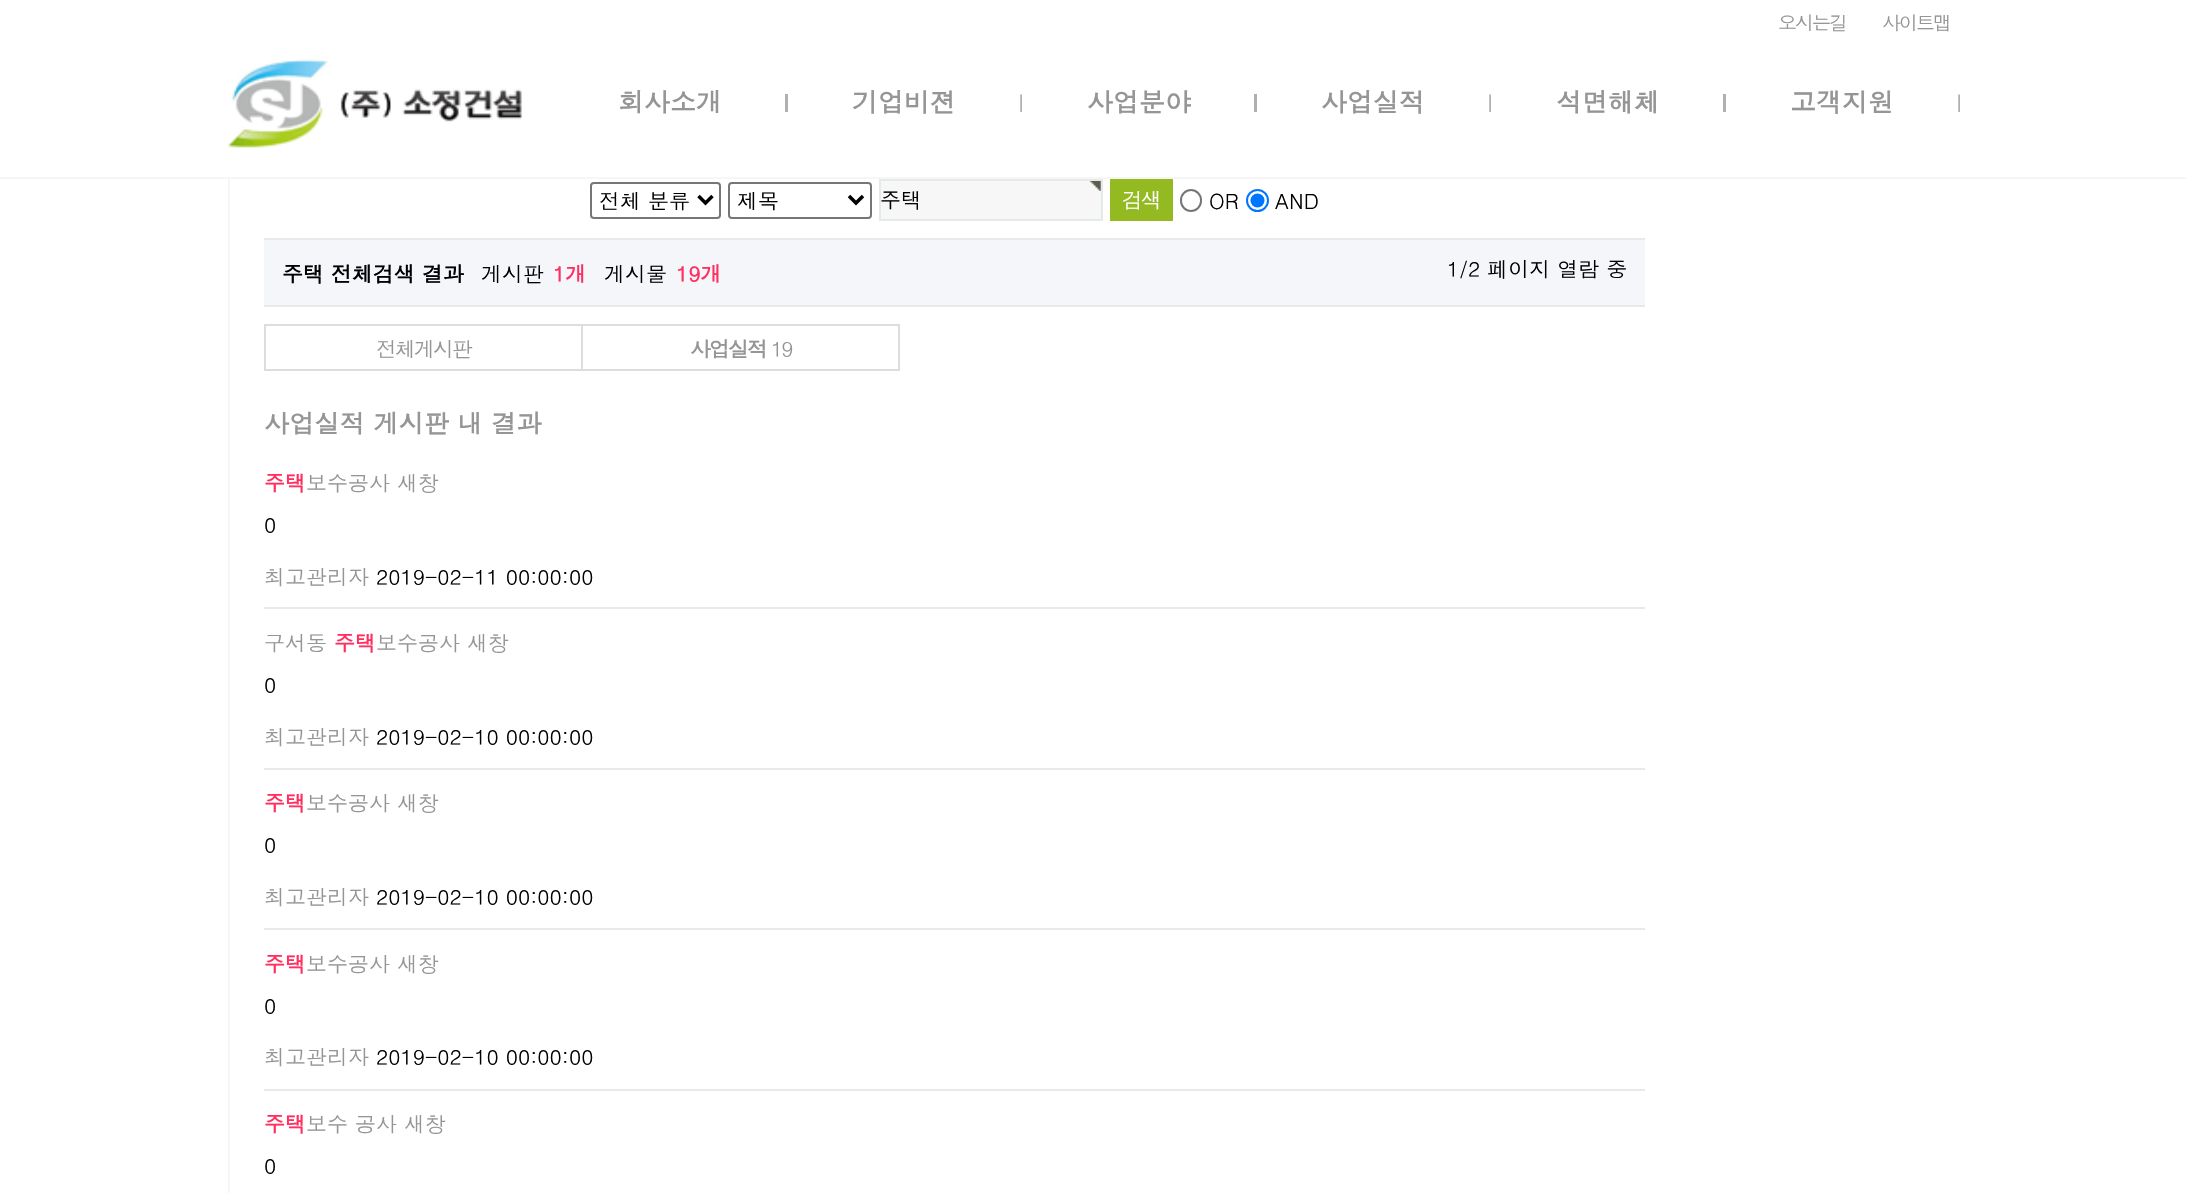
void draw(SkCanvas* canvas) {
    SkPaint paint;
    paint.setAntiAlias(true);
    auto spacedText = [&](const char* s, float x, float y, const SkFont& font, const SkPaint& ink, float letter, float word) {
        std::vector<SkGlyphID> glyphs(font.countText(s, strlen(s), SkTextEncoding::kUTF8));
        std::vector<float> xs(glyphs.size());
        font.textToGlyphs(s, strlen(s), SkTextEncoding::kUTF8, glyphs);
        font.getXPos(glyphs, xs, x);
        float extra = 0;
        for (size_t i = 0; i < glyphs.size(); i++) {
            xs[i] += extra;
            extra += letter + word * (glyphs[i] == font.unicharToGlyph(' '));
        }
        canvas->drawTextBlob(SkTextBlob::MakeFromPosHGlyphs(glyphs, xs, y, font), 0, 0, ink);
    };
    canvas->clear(0xFFFFFFFF);
    paint.setColor(0xFFF6F6F6);
    canvas->drawRect(SkRect::MakeXYWH(0, 177, 2186, 2), paint);
    SkFont font1(fontMgr->matchFamilyStyle("Dotum", SkFontStyle::Normal()), 19);
    font1.setSubpixel(true);
    paint.setColor(0xFF959595);
    spacedText("오시는길", 1778, 30, font1, paint, -2, 0);
    spacedText("사이트맵", 1882, 30, font1, paint, -2, 0);
    canvas->drawImageRect(SkImages::DeferredFromEncodedData(SkData::MakeFromFileName("img1.png")), SkRect::MakeXYWH(227, 59, 295, 89), SkSamplingOptions());
    paint.setColor(0xFFB0B0B0);
    canvas->drawRect(SkRect::MakeXYWH(785, 94, 3, 18), paint);
    SkFont font2(fontMgr->matchFamilyStyle("Dotum", SkFontStyle::Bold()), 26);
    font2.setSubpixel(true);
    paint.setColor(0xFF959595);
    canvas->drawString("회사소개", 618, 112, font2, paint);
    canvas->drawImageRect(SkImages::DeferredFromEncodedData(SkData::MakeFromFileName("img2.png")), SkRect::MakeXYWH(1020, 94, 2, 18), SkSamplingOptions());
    canvas->drawString("기업비젼", 852, 112, font2, paint);
    paint.setColor(0xFFB0B0B0);
    canvas->drawRect(SkRect::MakeXYWH(1254, 94, 3, 18), paint);
    paint.setColor(0xFF959595);
    canvas->drawString("사업분야", 1087, 112, font2, paint);
    canvas->drawImageRect(SkImages::DeferredFromEncodedData(SkData::MakeFromFileName("img2.png")), SkRect::MakeXYWH(1489, 94, 2, 18), SkSamplingOptions());
    canvas->drawString("사업실적", 1321, 112, font2, paint);
    paint.setColor(0xFFB0B0B0);
    canvas->drawRect(SkRect::MakeXYWH(1723, 94, 3, 18), paint);
    paint.setColor(0xFF959595);
    canvas->drawString("석면해체", 1556, 112, font2, paint);
    canvas->drawImageRect(SkImages::DeferredFromEncodedData(SkData::MakeFromFileName("img2.png")), SkRect::MakeXYWH(1958, 94, 2, 18), SkSamplingOptions());
    canvas->drawString("고객지원", 1790, 112, font2, paint);
    paint.setColor(0xFFF6F6F6);
    canvas->drawRect(SkRect::MakeXYWH(228, 179, 2, 1014), paint);
    paint.setColor(0xFFE9E9E9);
    canvas->drawRect(SkRect::MakeXYWH(264, 238, 1381, 2), paint);
    paint.setStyle(SkPaint::kStroke_Style);
    paint.setStrokeWidth(2);
    paint.setColor(0xFF767676);
    canvas->drawRoundRect(SkRect::MakeXYWH(591, 183, 129, 35), 3, 3, paint);
    paint.setStrokeWidth(3.5f);
    paint.setColor(0xFF000000);
    canvas->drawPath(SkPathBuilder().moveTo(698.5f, 196).lineTo(705.5f, 203).lineTo(712.5f, 196).detach(), paint);
    SkFont font3(fontMgr->matchFamilyStyle("Dotum", SkFontStyle::Normal()), 21);
    font3.setSubpixel(true);
    paint.setStyle(SkPaint::kFill_Style);
    canvas->drawString("전체 분류", 599, 209, font3, paint);
    paint.setStyle(SkPaint::kStroke_Style);
    paint.setStrokeWidth(2);
    paint.setColor(0xFF767676);
    canvas->drawRoundRect(SkRect::MakeXYWH(729, 183, 142, 35), 3, 3, paint);
    paint.setStrokeWidth(3.5f);
    paint.setColor(0xFF000000);
    canvas->drawPath(SkPathBuilder().moveTo(849, 196).lineTo(856, 203).lineTo(863, 196).detach(), paint);
    paint.setStyle(SkPaint::kFill_Style);
    canvas->drawString("제목", 737, 209, font3, paint);
    paint.setColor(0xFFF7F7F7);
    canvas->drawRect(SkRect::MakeXYWH(881, 181, 220, 38), paint);
    canvas->drawImageRect(SkImages::DeferredFromEncodedData(SkData::MakeFromFileName("img3.png")), SkRect::MakeXYWH(1090, 181, 11, 10), SkSamplingOptions());
    paint.setStyle(SkPaint::kStroke_Style);
    paint.setStrokeWidth(2);
    paint.setColor(0xFFE4EAEC);
    canvas->drawRect(SkRect::MakeXYWH(880, 180, 222, 40), paint);
    paint.setStyle(SkPaint::kFill_Style);
    paint.setColor(0xFF000000);
    canvas->drawString("주택", 880, 208, font3, paint);
    paint.setColor(0xFF94BA21);
    canvas->drawRect(SkRect::MakeXYWH(1110, 179, 63, 42), paint);
    paint.setColor(0xFFFFFFFF);
    spacedText("검색", 1122, 208, font3, paint, -2, 0);
    paint.setStyle(SkPaint::kStroke_Style);
    paint.setColor(0xFF767676);
    canvas->drawRoundRect(SkRect::MakeXYWH(1181, 190, 20, 21), 10, 10, paint);
    paint.setStyle(SkPaint::kFill_Style);
    paint.setColor(0xFF000000);
    canvas->drawString("OR", 1209, 209, font3, paint);
    paint.setStyle(SkPaint::kStroke_Style);
    paint.setColor(0xFF0075FF);
    canvas->drawCircle(1257.5f, 200.5f, 10.5f, paint);
    paint.setStyle(SkPaint::kFill_Style);
    canvas->drawCircle(1257.5f, 200.5f, 7, paint);
    paint.setColor(0xFF000000);
    canvas->drawString("AND", 1275, 209, font3, paint);
    paint.setColor(0xFFF5F6FA);
    canvas->drawRect(SkRect::MakeXYWH(264, 240, 1381, 65), paint);
    paint.setColor(0xFFE9E9E9);
    canvas->drawRect(SkRect::MakeXYWH(264, 305, 1381, 2), paint);
    SkFont font4(fontMgr->matchFamilyStyle("Dotum", SkFontStyle::Bold()), 21);
    font4.setSubpixel(true);
    paint.setColor(0xFF000000);
    canvas->drawString("주택 전체검색 결과", 282, 282, font4, paint);
    canvas->drawString("게시판", 481, 282, font3, paint);
    paint.setColor(0xFFFF3061);
    canvas->drawString("1개", 553, 282, font4, paint);
    paint.setColor(0xFF000000);
    canvas->drawString("게시물", 604, 282, font3, paint);
    paint.setColor(0xFFFF3061);
    canvas->drawString("19개", 676, 282, font4, paint);
    paint.setColor(0xFF000000);
    canvas->drawString("1/2 페이지 열람 중", 1447, 277, font3, paint);
    paint.setStyle(SkPaint::kStroke_Style);
    paint.setColor(0xFFDDDDDD);
    canvas->drawRect(SkRect::MakeXYWH(265, 325, 317, 45), paint);
    paint.setStyle(SkPaint::kFill_Style);
    paint.setColor(0xFF959595);
    spacedText("전체게시판", 376, 357, font3, paint, -2, 0);
    paint.setStyle(SkPaint::kStroke_Style);
    paint.setColor(0xFFDDDDDD);
    canvas->drawRect(SkRect::MakeXYWH(582, 325, 317, 45), paint);
    paint.setStyle(SkPaint::kFill_Style);
    paint.setColor(0xFF959595);
    spacedText("사업실적", 690, 357, font4, paint, -2, 0);
    spacedText("19", 771, 357, font3, paint, -2, 0);
    SkFont font5(fontMgr->matchFamilyStyle("Dotum", SkFontStyle::Bold()), 25.25f);
    font5.setSubpixel(true);
    canvas->drawString("사업실적 게시판 내 결과", 264, 433, font5, paint);
    paint.setColor(0xFFE9E9E9);
    canvas->drawRect(SkRect::MakeXYWH(264, 607, 1381, 2), paint);
    paint.setColor(0xFFFF3061);
    canvas->drawString("주택", 264, 491, font4, paint);
    paint.setColor(0xFF959595);
    canvas->drawString("보수공사 새창", 306, 491, font3, paint);
    paint.setColor(0xFF000000);
    canvas->drawString("0", 264, 533, font3, paint);
    paint.setColor(0xFF959595);
    canvas->drawString("최고관리자", 264, 585, font3, paint);
    paint.setColor(0xFF000000);
    canvas->drawString("2019-02-11 00:00:00", 376, 585, font3, paint);
    paint.setColor(0xFFE9E9E9);
    canvas->drawRect(SkRect::MakeXYWH(264, 768, 1381, 2), paint);
    paint.setColor(0xFF959595);
    canvas->drawString("구서동", 264, 651, font3, paint);
    paint.setColor(0xFFFF3061);
    canvas->drawString("주택", 334, 651, font4, paint);
    paint.setColor(0xFF959595);
    canvas->drawString("보수공사 새창", 376, 651, font3, paint);
    paint.setColor(0xFF000000);
    canvas->drawString("0", 264, 693, font3, paint);
    paint.setColor(0xFF959595);
    canvas->drawString("최고관리자", 264, 745, font3, paint);
    paint.setColor(0xFF000000);
    canvas->drawString("2019-02-10 00:00:00", 376, 745, font3, paint);
    paint.setColor(0xFFE9E9E9);
    canvas->drawRect(SkRect::MakeXYWH(264, 928, 1381, 2), paint);
    paint.setColor(0xFFFF3061);
    canvas->drawString("주택", 264, 811, font4, paint);
    paint.setColor(0xFF959595);
    canvas->drawString("보수공사 새창", 306, 811, font3, paint);
    paint.setColor(0xFF000000);
    canvas->drawString("0", 264, 853, font3, paint);
    paint.setColor(0xFF959595);
    canvas->drawString("최고관리자", 264, 905, font3, paint);
    paint.setColor(0xFF000000);
    canvas->drawString("2019-02-10 00:00:00", 376, 905, font3, paint);
    paint.setColor(0xFFE9E9E9);
    canvas->drawRect(SkRect::MakeXYWH(264, 1089, 1381, 2), paint);
    paint.setColor(0xFFFF3061);
    canvas->drawString("주택", 264, 972, font4, paint);
    paint.setColor(0xFF959595);
    canvas->drawString("보수공사 새창", 306, 972, font3, paint);
    paint.setColor(0xFF000000);
    canvas->drawString("0", 264, 1014, font3, paint);
    paint.setColor(0xFF959595);
    canvas->drawString("최고관리자", 264, 1065, font3, paint);
    paint.setColor(0xFF000000);
    canvas->drawString("2019-02-10 00:00:00", 376, 1065, font3, paint);
    paint.setColor(0xFFFF3061);
    canvas->drawString("주택", 264, 1132, font4, paint);
    paint.setColor(0xFF959595);
    canvas->drawString("보수 공사 새창", 306, 1132, font3, paint);
    paint.setColor(0xFF000000);
    canvas->drawString("0", 264, 1174, font3, paint);
}
